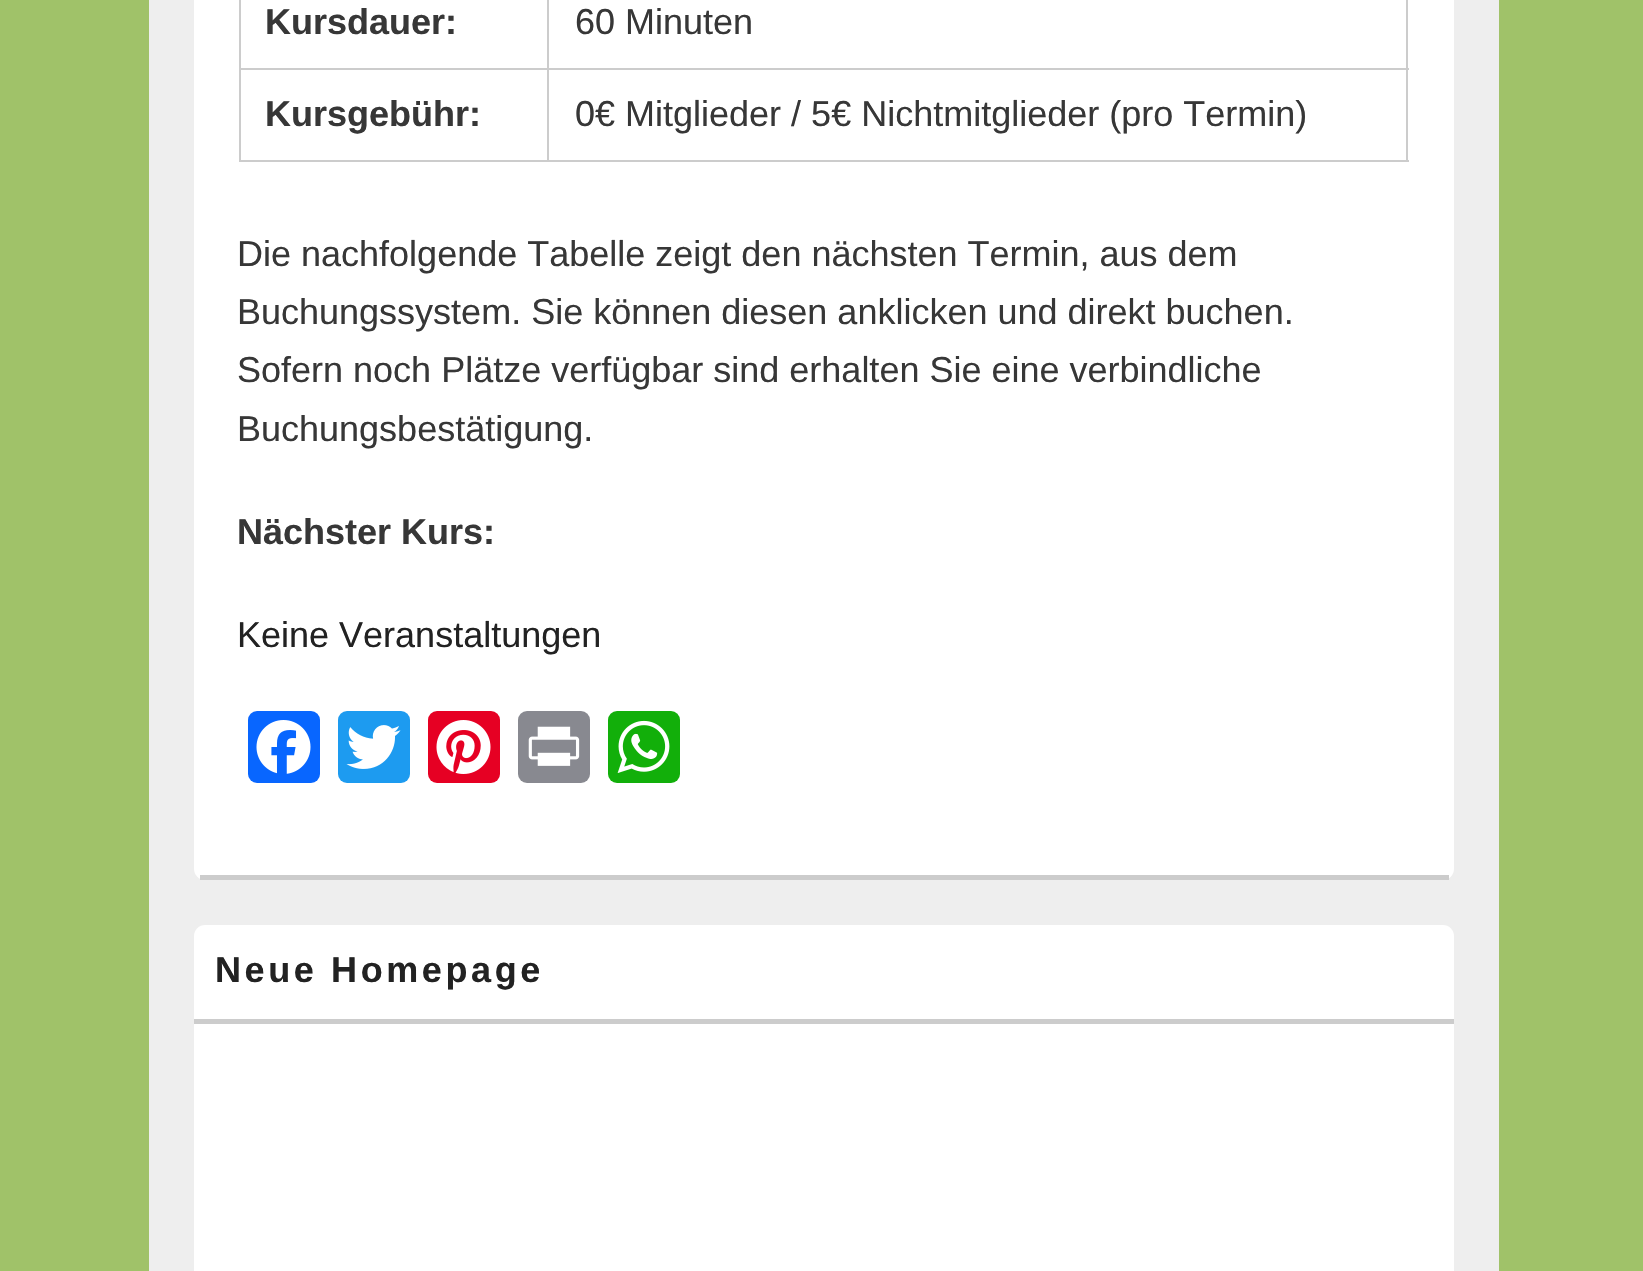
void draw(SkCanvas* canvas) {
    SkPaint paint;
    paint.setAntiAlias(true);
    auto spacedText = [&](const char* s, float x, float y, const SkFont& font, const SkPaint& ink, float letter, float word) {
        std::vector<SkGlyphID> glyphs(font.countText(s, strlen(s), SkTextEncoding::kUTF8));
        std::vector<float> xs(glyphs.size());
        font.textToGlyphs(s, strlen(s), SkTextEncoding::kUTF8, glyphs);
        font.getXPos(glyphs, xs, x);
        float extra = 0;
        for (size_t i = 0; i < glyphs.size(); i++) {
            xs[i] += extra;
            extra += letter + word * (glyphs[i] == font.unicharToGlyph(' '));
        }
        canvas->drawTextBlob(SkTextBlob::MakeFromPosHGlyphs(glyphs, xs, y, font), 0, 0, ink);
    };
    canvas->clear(0xFFA0C269);
    paint.setColor(0xFFEEEEEE);
    canvas->drawRect(SkRect::MakeXYWH(149, 0, 1350, 1271), paint);
    paint.setColor(0xFFFFFFFF);
    canvas->drawRoundRect(SkRect::MakeXYWH(194, -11, 1260, 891), 11, 11, paint);
    paint.setColor(0xFFCCCCCC);
    canvas->drawRect(SkRect::MakeXYWH(200, 875, 1249, 5), paint);
    canvas->drawRect(SkRect::MakeXYWH(239, 0, 2, 162), paint);
    canvas->drawRect(SkRect::MakeXYWH(547, 0, 2, 162), paint);
    canvas->drawRect(SkRect::MakeXYWH(241, 68, 308, 2), paint);
    SkFont font1(fontMgr->matchFamilyStyle("Liberation Sans", SkFontStyle::Bold()), 36);
    font1.setSubpixel(true);
    paint.setColor(0xFF373737);
    canvas->drawString("Kursdauer:", 265, 34, font1, paint);
    paint.setColor(0xFFCCCCCC);
    canvas->drawRect(SkRect::MakeXYWH(1406, 0, 2, 162), paint);
    canvas->drawRect(SkRect::MakeXYWH(549, 68, 860, 2), paint);
    SkFont font2(fontMgr->matchFamilyStyle("Liberation Sans", SkFontStyle::Normal()), 36);
    font2.setSubpixel(true);
    paint.setColor(0xFF373737);
    canvas->drawString("60 Minuten", 575, 34, font2, paint);
    paint.setColor(0xFFCCCCCC);
    canvas->drawRect(SkRect::MakeXYWH(241, 160, 1168, 2), paint);
    paint.setColor(0xFF373737);
    canvas->drawString("Kursgebühr:", 265, 126, font1, paint);
    canvas->drawString("0€ Mitglieder / 5€ Nichtmitglieder (pro Termin)", 575, 126, font2, paint);
    canvas->drawString("Die nachfolgende Tabelle zeigt den nächsten Termin, aus dem", 237, 266, font2, paint);
    canvas->drawString("Buchungssystem. Sie können diesen anklicken und direkt buchen.", 237, 324, font2, paint);
    canvas->drawString("Sofern noch Plätze verfügbar sind erhalten Sie eine verbindliche", 237, 382, font2, paint);
    canvas->drawString("Buchungsbestätigung.", 237, 441, font2, paint);
    canvas->drawString("Nächster Kurs:", 237, 544, font1, paint);
    paint.setColor(0xFF222222);
    canvas->drawString("Keine Veranstaltungen", 237, 647, font2, paint);
    paint.setColor(0xFF0866FF);
    canvas->drawRoundRect(SkRect::MakeXYWH(248, 711, 72, 72), 9, 9, paint);
    canvas->drawImageRect(SkImages::DeferredFromEncodedData(SkData::MakeFromFileName("img1.png")), SkRect::MakeXYWH(256, 720, 55, 54), SkSamplingOptions());
    paint.setColor(0xFF1D9BF0);
    canvas->drawRoundRect(SkRect::MakeXYWH(338, 711, 72, 72), 9, 9, paint);
    canvas->drawImageRect(SkImages::DeferredFromEncodedData(SkData::MakeFromFileName("img2.png")), SkRect::MakeXYWH(346, 725, 55, 44), SkSamplingOptions());
    paint.setColor(0xFFE60023);
    canvas->drawRoundRect(SkRect::MakeXYWH(428, 711, 72, 72), 9, 9, paint);
    canvas->drawImageRect(SkImages::DeferredFromEncodedData(SkData::MakeFromFileName("img3.png")), SkRect::MakeXYWH(436, 720, 55, 54), SkSamplingOptions());
    paint.setColor(0xFF888990);
    canvas->drawRoundRect(SkRect::MakeXYWH(518, 711, 72, 72), 9, 9, paint);
    canvas->drawImageRect(SkImages::DeferredFromEncodedData(SkData::MakeFromFileName("img4.png")), SkRect::MakeXYWH(528, 726, 52, 40), SkSamplingOptions());
    paint.setColor(0xFF12AF0A);
    canvas->drawRoundRect(SkRect::MakeXYWH(608, 711, 72, 72), 9, 9, paint);
    canvas->drawImageRect(SkImages::DeferredFromEncodedData(SkData::MakeFromFileName("img5.png")), SkRect::MakeXYWH(617, 720, 53, 53), SkSamplingOptions());
    paint.setColor(0xFFFFFFFF);
    canvas->drawRoundRect(SkRect::MakeXYWH(194, 925, 1260, 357), 11, 11, paint);
    paint.setColor(0xFFCCCCCC);
    canvas->drawRect(SkRect::MakeXYWH(194, 1019, 1260, 5), paint);
    paint.setColor(0xFF222222);
    spacedText("Neue Homepage", 215, 982, font1, paint, 3.6f, 0);
}
